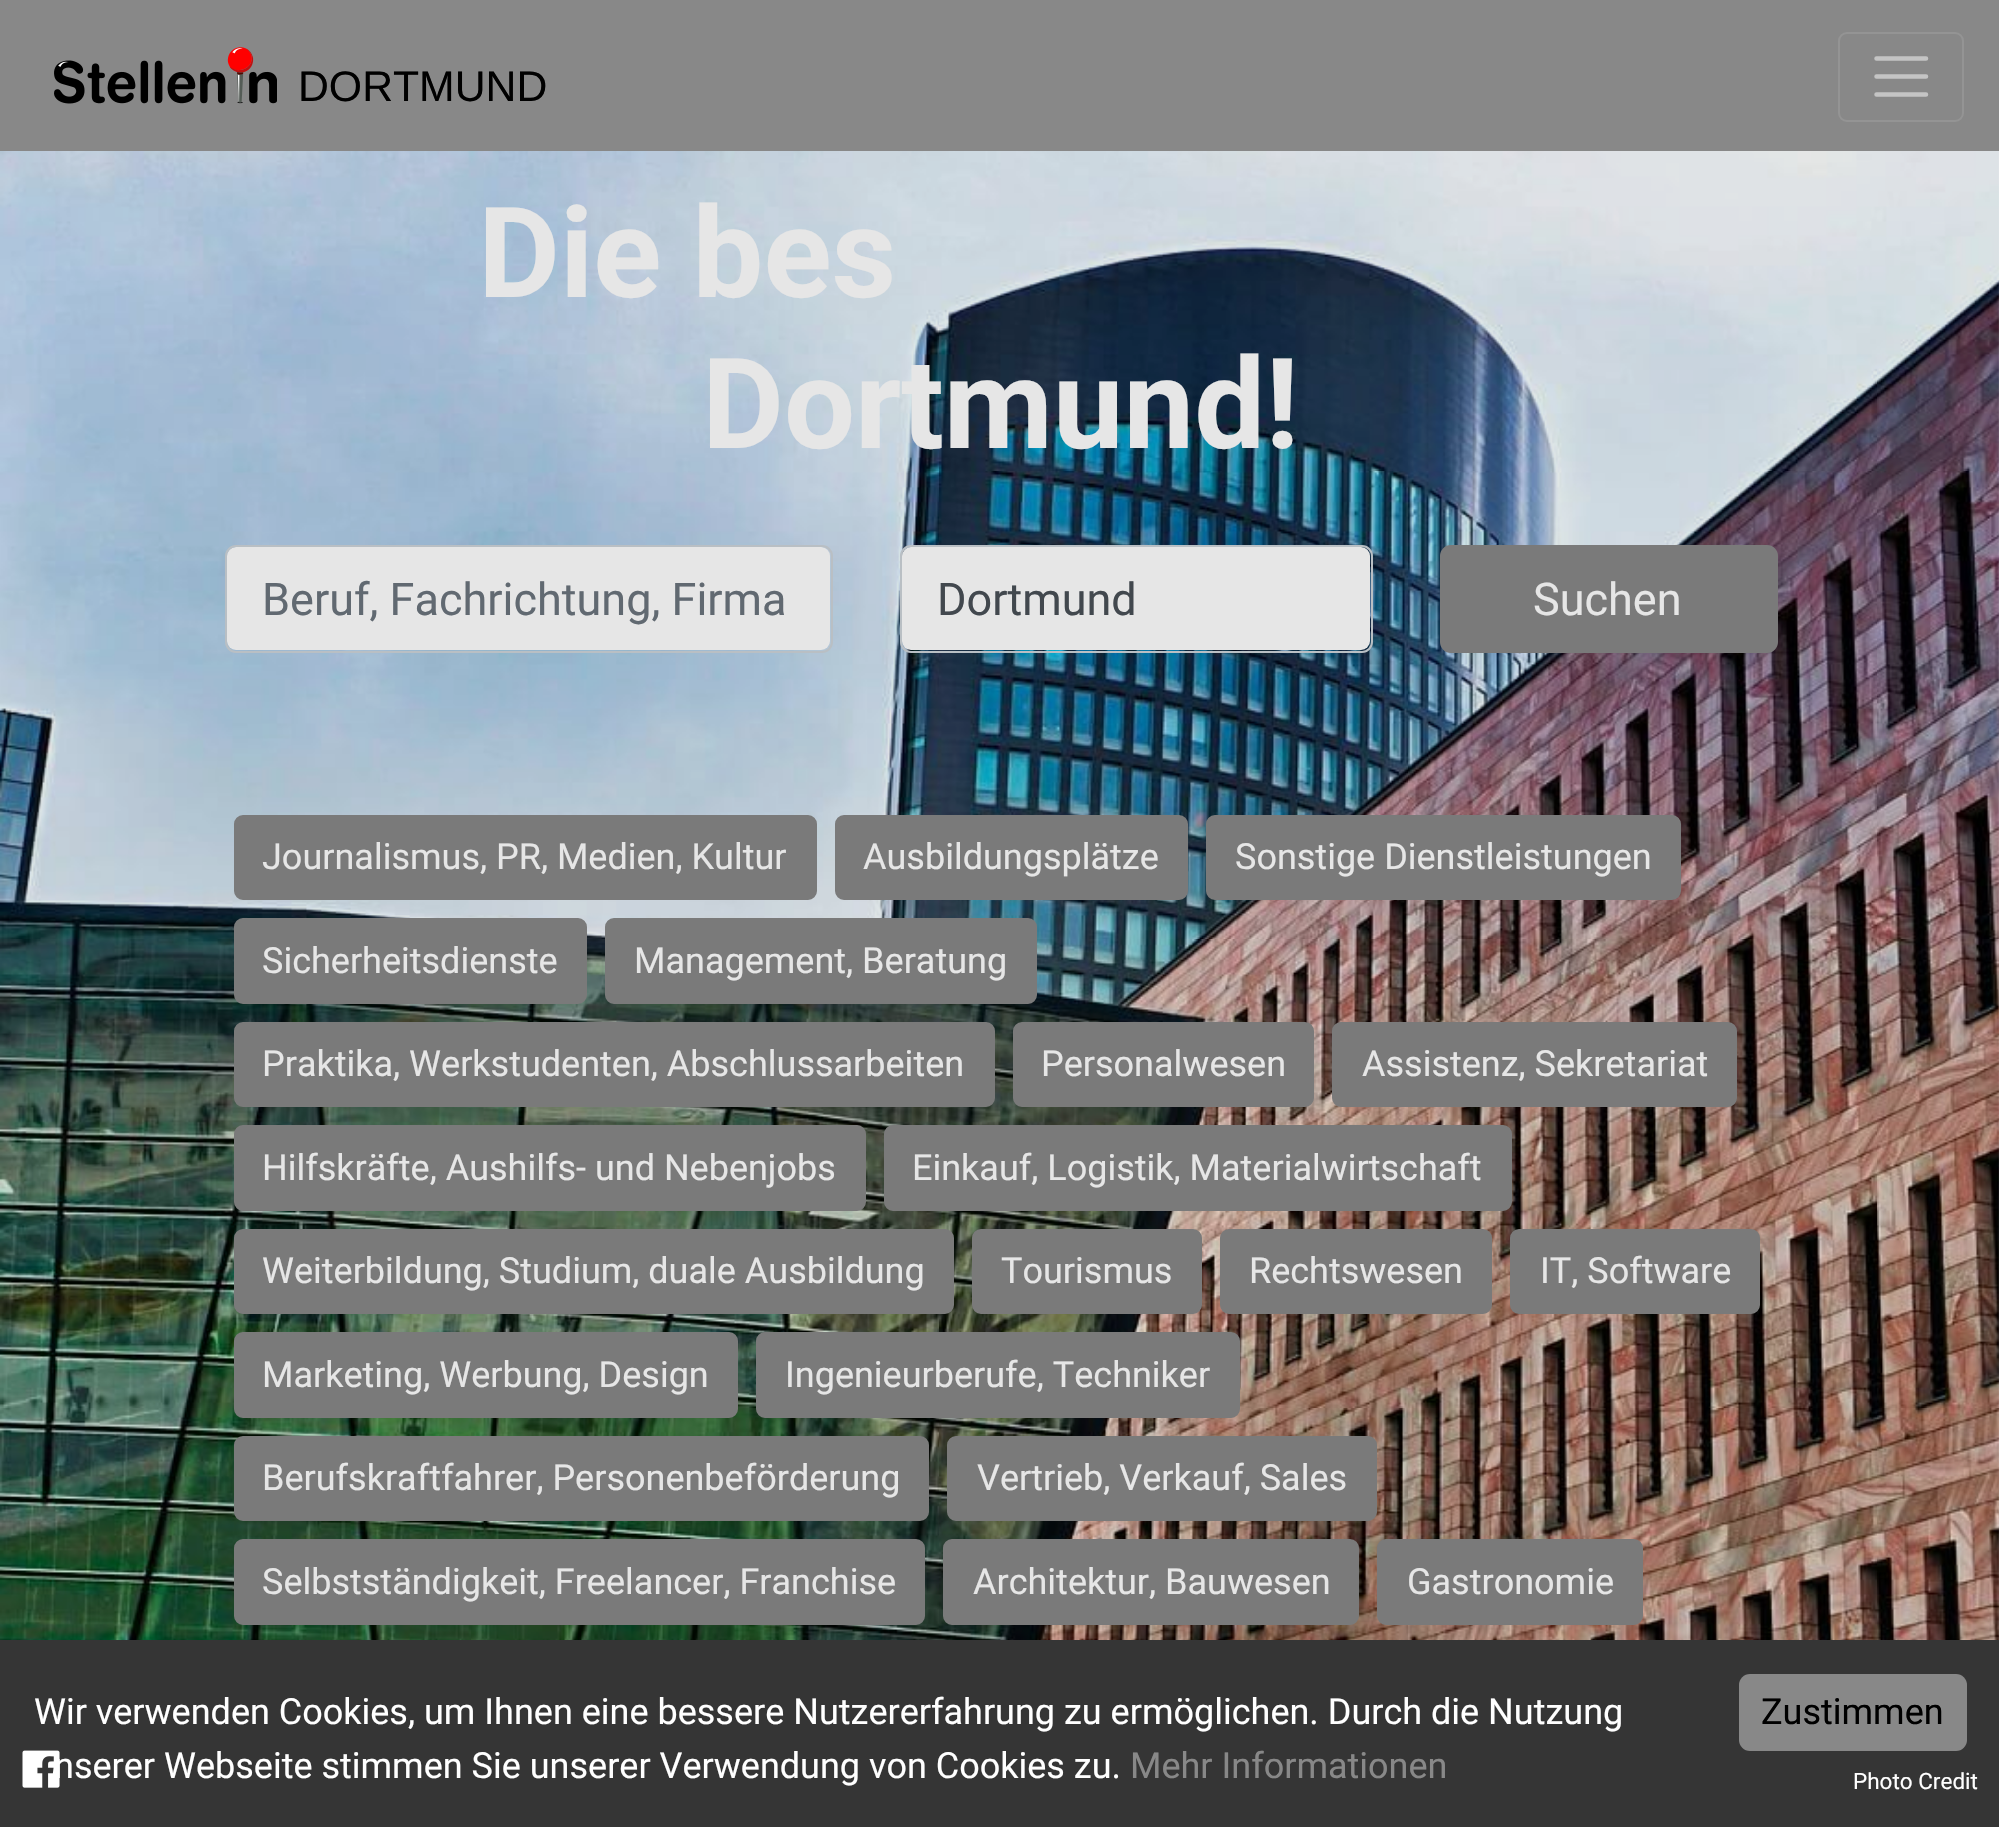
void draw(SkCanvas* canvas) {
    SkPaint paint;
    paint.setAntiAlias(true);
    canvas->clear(0xFFFFFFFF);
    paint.setColor(0xFF888888);
    canvas->drawRect(SkRect::MakeXYWH(0, 0, 1999, 151), paint);
    canvas->drawImageRect(SkImages::DeferredFromEncodedData(SkData::MakeFromFileName("img1.png")), SkRect::MakeXYWH(54, 47, 223, 57), SkSamplingOptions());
    SkFont font1(fontMgr->matchFamilyStyle("Liberation Sans", SkFontStyle::Normal()), 42.75f);
    font1.setSubpixel(true);
    paint.setColor(0xFF000000);
    canvas->drawString("DORTMUND", 298, 101, font1, paint);
    paint.setStyle(SkPaint::kStroke_Style);
    paint.setStrokeWidth(2);
    paint.setColor(0xFF949494);
    canvas->drawRoundRect(SkRect::MakeXYWH(1839, 33, 124, 88), 8, 8, paint);
    paint.setStrokeWidth(4.5f);
    paint.setStrokeCap(SkPaint::kRound_Cap);
    paint.setColor(0xFFC4C4C4);
    canvas->drawPath(SkPathBuilder().moveTo(1876.5f, 58.5f).lineTo(1926, 58.5f).moveTo(1876.5f, 76.5f).lineTo(1926, 76.5f).moveTo(1876.5f, 94.5f).lineTo(1926, 94.5f).detach(), paint);
    paint.setStyle(SkPaint::kFill_Style);
    paint.setColor(0xFF353535);
    canvas->drawRect(SkRect::MakeXYWH(0, 1640, 1999, 187), paint);
    SkFont font2(fontMgr->matchFamilyStyle("Roboto", SkFontStyle::Normal()), 36);
    font2.setSubpixel(true);
    paint.setColor(0xFFFFFFFF);
    canvas->drawString("Wir verwenden Cookies, um Ihnen eine bessere Nutzererfahrung zu ermöglichen. Durch die Nutzung", 34, 1724, font2, paint);
    canvas->drawString("nserer Webseite stimmen Sie unserer Verwendung von Cookies zu.", 54, 1778, font2, paint);
    paint.setColor(0xFF888888);
    canvas->drawString("Mehr Informationen", 1130, 1778, font2, paint);
    canvas->drawRoundRect(SkRect::MakeXYWH(1739, 1674, 228, 77), 11, 11, paint);
    paint.setColor(0xFF000000);
    canvas->drawString("Zustimmen", 1761, 1724, font2, paint);
    canvas->drawImageRect(SkImages::DeferredFromEncodedData(SkData::MakeFromFileName("img2.png")), SkRect::MakeXYWH(0, 151, 1999, 1489), SkSamplingOptions());
    SkFont font3(fontMgr->matchFamilyStyle("Roboto", SkFontStyle::Bold()), 126);
    font3.setSubpixel(true);
    paint.setColor(0xFFE6E6E6);
    canvas->drawString("Die bes", 478, 297, font3, paint);
    canvas->drawString("Dortmund!", 702, 448, font3, paint);
    canvas->drawRoundRect(SkRect::MakeXYWH(227, 547, 603, 103), 9, 9, paint);
    paint.setStyle(SkPaint::kStroke_Style);
    paint.setStrokeWidth(2);
    paint.setStrokeCap(SkPaint::kButt_Cap);
    paint.setColor(0xFFB9BFC4);
    canvas->drawRoundRect(SkRect::MakeXYWH(226, 546, 606, 106), 10, 10, paint);
    SkFont font4(fontMgr->matchFamilyStyle("Roboto", SkFontStyle::Normal()), 45);
    font4.setSubpixel(true);
    paint.setStyle(SkPaint::kFill_Style);
    paint.setColor(0xFF616971);
    canvas->drawString("Beruf, Fachrichtung, Firma", 262, 615, font4, paint);
    paint.setColor(0xFFE6E6E6);
    canvas->drawRoundRect(SkRect::MakeXYWH(902, 547, 468, 103), 9, 9, paint);
    paint.setStyle(SkPaint::kStroke_Style);
    paint.setColor(0xFFB9BFC4);
    canvas->drawRoundRect(SkRect::MakeXYWH(901, 546, 471, 106), 10, 10, paint);
    paint.setStyle(SkPaint::kFill_Style);
    paint.setColor(0xFF42484E);
    canvas->drawString("Dortmund", 937, 615, font4, paint);
    paint.setColor(0xFF7A7A7A);
    canvas->drawRoundRect(SkRect::MakeXYWH(1441, 546, 336, 106), 10, 10, paint);
    paint.setStyle(SkPaint::kStroke_Style);
    canvas->drawRoundRect(SkRect::MakeXYWH(1441, 546, 336, 106), 10, 10, paint);
    paint.setStyle(SkPaint::kFill_Style);
    paint.setColor(0xFFE6E6E6);
    canvas->drawString("Suchen", 1533, 615, font4, paint);
    paint.setColor(0xFF7A7A7A);
    canvas->drawRoundRect(SkRect::MakeXYWH(235, 816, 581, 83), 8, 8, paint);
    paint.setStyle(SkPaint::kStroke_Style);
    canvas->drawRoundRect(SkRect::MakeXYWH(235, 816, 581, 83), 8, 8, paint);
    paint.setStyle(SkPaint::kFill_Style);
    paint.setColor(0xFFE6E6E6);
    canvas->drawString("Journalismus, PR, Medien, Kultur", 262, 869, font2, paint);
    paint.setColor(0xFF7A7A7A);
    canvas->drawRoundRect(SkRect::MakeXYWH(836, 816, 351, 83), 8, 8, paint);
    paint.setStyle(SkPaint::kStroke_Style);
    canvas->drawRoundRect(SkRect::MakeXYWH(836, 816, 351, 83), 8, 8, paint);
    paint.setStyle(SkPaint::kFill_Style);
    paint.setColor(0xFFE6E6E6);
    canvas->drawString("Ausbildungsplätze", 863, 869, font2, paint);
    paint.setColor(0xFF7A7A7A);
    canvas->drawRoundRect(SkRect::MakeXYWH(1207, 816, 473, 83), 8, 8, paint);
    paint.setStyle(SkPaint::kStroke_Style);
    canvas->drawRoundRect(SkRect::MakeXYWH(1207, 816, 473, 83), 8, 8, paint);
    paint.setStyle(SkPaint::kFill_Style);
    paint.setColor(0xFFE6E6E6);
    canvas->drawString("Sonstige Dienstleistungen", 1235, 869, font2, paint);
    paint.setColor(0xFF7A7A7A);
    canvas->drawRoundRect(SkRect::MakeXYWH(235, 919, 351, 84), 8, 8, paint);
    paint.setStyle(SkPaint::kStroke_Style);
    canvas->drawRoundRect(SkRect::MakeXYWH(235, 919, 351, 84), 8, 8, paint);
    paint.setStyle(SkPaint::kFill_Style);
    paint.setColor(0xFFE6E6E6);
    canvas->drawString("Sicherheitsdienste", 262, 973, font2, paint);
    paint.setColor(0xFF7A7A7A);
    canvas->drawRoundRect(SkRect::MakeXYWH(606, 919, 430, 84), 8, 8, paint);
    paint.setStyle(SkPaint::kStroke_Style);
    canvas->drawRoundRect(SkRect::MakeXYWH(606, 919, 430, 84), 8, 8, paint);
    paint.setStyle(SkPaint::kFill_Style);
    paint.setColor(0xFFE6E6E6);
    canvas->drawString("Management, Beratung", 634, 973, font2, paint);
    paint.setColor(0xFF7A7A7A);
    canvas->drawRoundRect(SkRect::MakeXYWH(235, 1023, 759, 83), 8, 8, paint);
    paint.setStyle(SkPaint::kStroke_Style);
    canvas->drawRoundRect(SkRect::MakeXYWH(235, 1023, 759, 83), 8, 8, paint);
    paint.setStyle(SkPaint::kFill_Style);
    paint.setColor(0xFFE6E6E6);
    canvas->drawString("Praktika, Werkstudenten, Abschlussarbeiten", 262, 1076, font2, paint);
    paint.setColor(0xFF7A7A7A);
    canvas->drawRoundRect(SkRect::MakeXYWH(1014, 1023, 299, 83), 8, 8, paint);
    paint.setStyle(SkPaint::kStroke_Style);
    canvas->drawRoundRect(SkRect::MakeXYWH(1014, 1023, 299, 83), 8, 8, paint);
    paint.setStyle(SkPaint::kFill_Style);
    paint.setColor(0xFFE6E6E6);
    canvas->drawString("Personalwesen", 1041, 1076, font2, paint);
    paint.setColor(0xFF7A7A7A);
    canvas->drawRoundRect(SkRect::MakeXYWH(1333, 1023, 403, 83), 8, 8, paint);
    paint.setStyle(SkPaint::kStroke_Style);
    canvas->drawRoundRect(SkRect::MakeXYWH(1333, 1023, 403, 83), 8, 8, paint);
    paint.setStyle(SkPaint::kFill_Style);
    paint.setColor(0xFFE6E6E6);
    canvas->drawString("Assistenz, Sekretariat", 1362, 1076, font2, paint);
    paint.setColor(0xFF7A7A7A);
    canvas->drawRoundRect(SkRect::MakeXYWH(235, 1126, 630, 84), 8, 8, paint);
    paint.setStyle(SkPaint::kStroke_Style);
    canvas->drawRoundRect(SkRect::MakeXYWH(235, 1126, 630, 84), 8, 8, paint);
    paint.setStyle(SkPaint::kFill_Style);
    paint.setColor(0xFFE6E6E6);
    canvas->drawString("Hilfskräfte, Aushilfs- und Nebenjobs", 262, 1180, font2, paint);
    paint.setColor(0xFF7A7A7A);
    canvas->drawRoundRect(SkRect::MakeXYWH(885, 1126, 626, 84), 8, 8, paint);
    paint.setStyle(SkPaint::kStroke_Style);
    canvas->drawRoundRect(SkRect::MakeXYWH(885, 1126, 626, 84), 8, 8, paint);
    paint.setStyle(SkPaint::kFill_Style);
    paint.setColor(0xFFE6E6E6);
    canvas->drawString("Einkauf, Logistik, Materialwirtschaft", 912, 1180, font2, paint);
    paint.setColor(0xFF7A7A7A);
    canvas->drawRoundRect(SkRect::MakeXYWH(235, 1230, 718, 83), 8, 8, paint);
    paint.setStyle(SkPaint::kStroke_Style);
    canvas->drawRoundRect(SkRect::MakeXYWH(235, 1230, 718, 83), 8, 8, paint);
    paint.setStyle(SkPaint::kFill_Style);
    paint.setColor(0xFFE6E6E6);
    canvas->drawString("Weiterbildung, Studium, duale Ausbildung", 262, 1283, font2, paint);
    paint.setColor(0xFF7A7A7A);
    canvas->drawRoundRect(SkRect::MakeXYWH(973, 1230, 228, 83), 8, 8, paint);
    paint.setStyle(SkPaint::kStroke_Style);
    canvas->drawRoundRect(SkRect::MakeXYWH(973, 1230, 228, 83), 8, 8, paint);
    paint.setStyle(SkPaint::kFill_Style);
    paint.setColor(0xFFE6E6E6);
    canvas->drawString("Tourismus", 1001, 1283, font2, paint);
    paint.setColor(0xFF7A7A7A);
    canvas->drawRoundRect(SkRect::MakeXYWH(1221, 1230, 270, 83), 8, 8, paint);
    paint.setStyle(SkPaint::kStroke_Style);
    canvas->drawRoundRect(SkRect::MakeXYWH(1221, 1230, 270, 83), 8, 8, paint);
    paint.setStyle(SkPaint::kFill_Style);
    paint.setColor(0xFFE6E6E6);
    canvas->drawString("Rechtswesen", 1249, 1283, font2, paint);
    paint.setColor(0xFF7A7A7A);
    canvas->drawRoundRect(SkRect::MakeXYWH(1511, 1230, 248, 83), 8, 8, paint);
    paint.setStyle(SkPaint::kStroke_Style);
    canvas->drawRoundRect(SkRect::MakeXYWH(1511, 1230, 248, 83), 8, 8, paint);
    paint.setStyle(SkPaint::kFill_Style);
    paint.setColor(0xFFE6E6E6);
    canvas->drawString("IT, Software", 1540, 1283, font2, paint);
    paint.setColor(0xFF7A7A7A);
    canvas->drawRoundRect(SkRect::MakeXYWH(235, 1333, 502, 84), 8, 8, paint);
    paint.setStyle(SkPaint::kStroke_Style);
    canvas->drawRoundRect(SkRect::MakeXYWH(235, 1333, 502, 84), 8, 8, paint);
    paint.setStyle(SkPaint::kFill_Style);
    paint.setColor(0xFFE6E6E6);
    canvas->drawString("Marketing, Werbung, Design", 262, 1387, font2, paint);
    paint.setColor(0xFF7A7A7A);
    canvas->drawRoundRect(SkRect::MakeXYWH(757, 1333, 482, 84), 8, 8, paint);
    paint.setStyle(SkPaint::kStroke_Style);
    canvas->drawRoundRect(SkRect::MakeXYWH(757, 1333, 482, 84), 8, 8, paint);
    paint.setStyle(SkPaint::kFill_Style);
    paint.setColor(0xFFE6E6E6);
    canvas->drawString("Ingenieurberufe, Techniker", 785, 1387, font2, paint);
    paint.setColor(0xFF7A7A7A);
    canvas->drawRoundRect(SkRect::MakeXYWH(235, 1437, 693, 83), 8, 8, paint);
    paint.setStyle(SkPaint::kStroke_Style);
    canvas->drawRoundRect(SkRect::MakeXYWH(235, 1437, 693, 83), 8, 8, paint);
    paint.setStyle(SkPaint::kFill_Style);
    paint.setColor(0xFFE6E6E6);
    canvas->drawString("Berufskraftfahrer, Personenbeförderung", 262, 1490, font2, paint);
    paint.setColor(0xFF7A7A7A);
    canvas->drawRoundRect(SkRect::MakeXYWH(948, 1437, 428, 83), 8, 8, paint);
    paint.setStyle(SkPaint::kStroke_Style);
    canvas->drawRoundRect(SkRect::MakeXYWH(948, 1437, 428, 83), 8, 8, paint);
    paint.setStyle(SkPaint::kFill_Style);
    paint.setColor(0xFFE6E6E6);
    canvas->drawString("Vertrieb, Verkauf, Sales", 977, 1490, font2, paint);
    paint.setColor(0xFF7A7A7A);
    canvas->drawRoundRect(SkRect::MakeXYWH(235, 1540, 689, 84), 8, 8, paint);
    paint.setStyle(SkPaint::kStroke_Style);
    canvas->drawRoundRect(SkRect::MakeXYWH(235, 1540, 689, 84), 8, 8, paint);
    paint.setStyle(SkPaint::kFill_Style);
    paint.setColor(0xFFE6E6E6);
    canvas->drawString("Selbstständigkeit, Freelancer, Franchise", 262, 1594, font2, paint);
    paint.setColor(0xFF7A7A7A);
    canvas->drawRoundRect(SkRect::MakeXYWH(944, 1540, 414, 84), 8, 8, paint);
    paint.setStyle(SkPaint::kStroke_Style);
    canvas->drawRoundRect(SkRect::MakeXYWH(944, 1540, 414, 84), 8, 8, paint);
    paint.setStyle(SkPaint::kFill_Style);
    paint.setColor(0xFFE6E6E6);
    canvas->drawString("Architektur, Bauwesen", 973, 1594, font2, paint);
    paint.setColor(0xFF7A7A7A);
    canvas->drawRoundRect(SkRect::MakeXYWH(1378, 1540, 264, 84), 8, 8, paint);
    paint.setStyle(SkPaint::kStroke_Style);
    canvas->drawRoundRect(SkRect::MakeXYWH(1378, 1540, 264, 84), 8, 8, paint);
    paint.setStyle(SkPaint::kFill_Style);
    paint.setColor(0xFFE6E6E6);
    canvas->drawString("Gastronomie", 1407, 1594, font2, paint);
    canvas->drawImageRect(SkImages::DeferredFromEncodedData(SkData::MakeFromFileName("img3.png")), SkRect::MakeXYWH(22, 1750, 38, 38), SkSamplingOptions());
    SkFont font5(fontMgr->matchFamilyStyle("Roboto", SkFontStyle::Normal()), 22.5f);
    font5.setSubpixel(true);
    paint.setColor(0xFFFFFFFF);
    canvas->drawString("Photo Credit", 1853, 1789, font5, paint);
}
